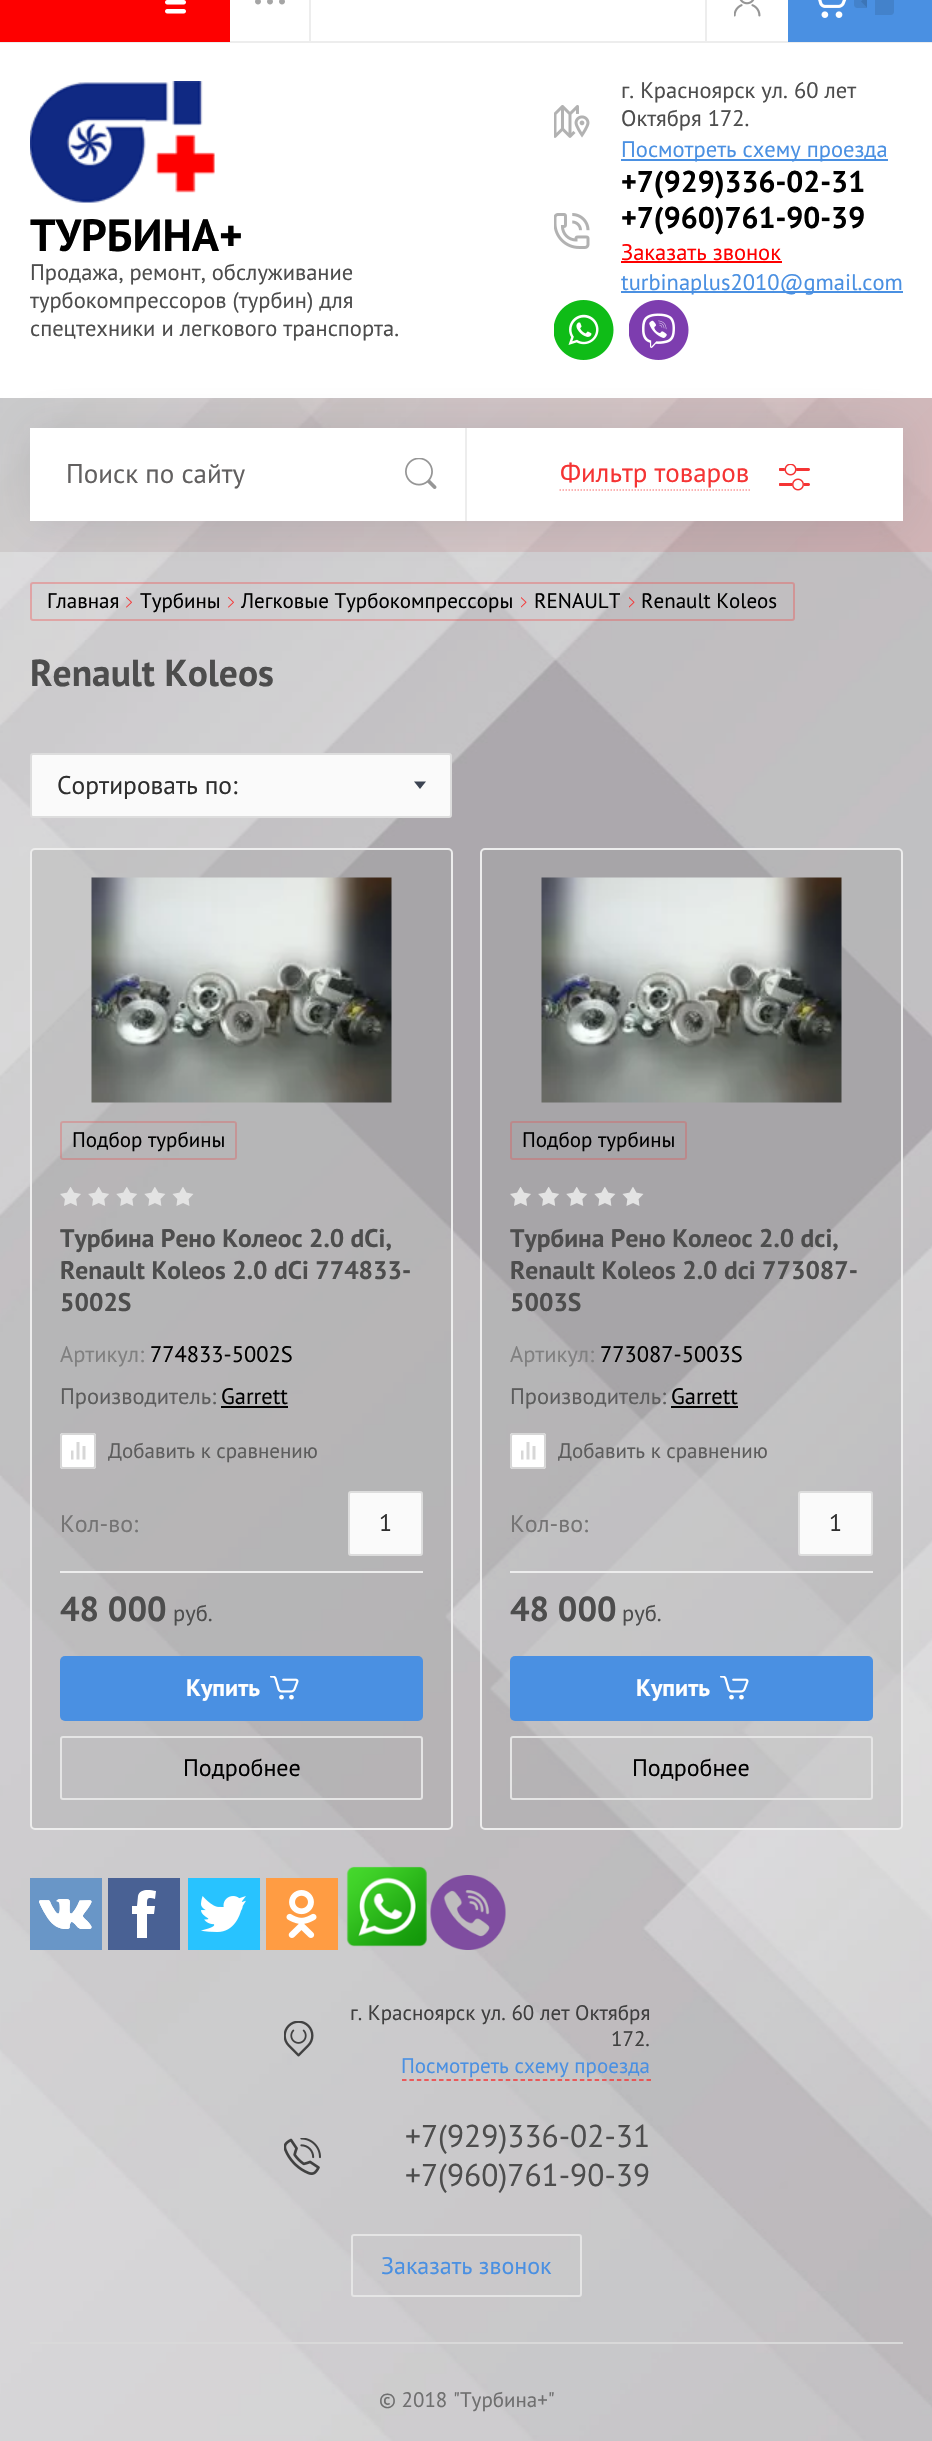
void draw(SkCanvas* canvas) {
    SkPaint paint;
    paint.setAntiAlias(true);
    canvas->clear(0xFFFFFFFF);
    canvas->drawImageRect(SkImages::DeferredFromEncodedData(SkData::MakeFromFileName("img1.png")), SkRect::MakeXYWH(0, 398, 932, 2043), SkSamplingOptions());
    paint.setColor(0xFFEDEDED);
    canvas->drawRect(SkRect::MakeXYWH(0, 41, 932, 2), paint);
    paint.setColor(0xFFFE0000);
    canvas->drawRect(SkRect::MakeXYWH(0, 0, 230, 42), paint);
    canvas->drawImageRect(SkImages::DeferredFromEncodedData(SkData::MakeFromFileName("img2.png")), SkRect::MakeXYWH(165, 0, 21, 14), SkSamplingOptions());
    canvas->drawImageRect(SkImages::DeferredFromEncodedData(SkData::MakeFromFileName("img3.png")), SkRect::MakeXYWH(255, 0, 30, 5), SkSamplingOptions());
    paint.setColor(0xFFEDEDED);
    canvas->drawRect(SkRect::MakeXYWH(309, 0, 2, 42), paint);
    canvas->drawRect(SkRect::MakeXYWH(705, 0, 2, 42), paint);
    canvas->drawImageRect(SkImages::DeferredFromEncodedData(SkData::MakeFromFileName("img4.png")), SkRect::MakeXYWH(734, 0, 27, 17), SkSamplingOptions());
    paint.setColor(0xFF4A90E2);
    canvas->drawRect(SkRect::MakeXYWH(788, 0, 144, 42), paint);
    canvas->drawImageRect(SkImages::DeferredFromEncodedData(SkData::MakeFromFileName("img5.png")), SkRect::MakeXYWH(818, 0, 29, 18), SkSamplingOptions());
    paint.setColor(0xFF4382CB);
    canvas->drawPath(SkPathBuilder().moveTo(857, -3).lineTo(867, -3).lineTo(867, 8).lineTo(857, 8).cubicTo(855.5f, 8, 854, 6.5f, 854, 5).lineTo(854, 0).cubicTo(854, -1.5f, 855.5f, -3, 857, -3).close().detach(), paint);
    canvas->drawPath(SkPathBuilder().moveTo(875, -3).lineTo(891, -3).cubicTo(892.5f, -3, 894, -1.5f, 894, 0).lineTo(894, 12).cubicTo(894, 13.5f, 892.5f, 15, 891, 15).lineTo(875, 15).close().detach(), paint);
    paint.setColor(0xFF3C75B7);
    canvas->drawPath(SkPathBuilder().moveTo(867, -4.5f).lineTo(867, 7.5f).lineTo(861, 1.5f).close().detach(), paint);
    canvas->drawImageRect(SkImages::DeferredFromEncodedData(SkData::MakeFromFileName("img6.png")), SkRect::MakeXYWH(30, 81, 185, 122), SkSamplingOptions());
    SkFont font1(fontMgr->matchFamilyStyle("PT Sans", SkFontStyle::Bold()), 45);
    font1.setSubpixel(true);
    paint.setColor(0xFF000000);
    canvas->drawString("ТУРБИНА+", 30, 251, font1, paint);
    SkFont font2(fontMgr->matchFamilyStyle("PT Sans", SkFontStyle::Normal()), 22.5f);
    font2.setSubpixel(true);
    paint.setColor(0xFF4D4D4D);
    canvas->drawString("Продажа, ремонт, обслуживание", 30, 280, font2, paint);
    canvas->drawString("турбокомпрессоров (турбин) для", 30, 308, font2, paint);
    canvas->drawString("спецтехники и легкового транспорта.", 30, 336, font2, paint);
    canvas->drawImageRect(SkImages::DeferredFromEncodedData(SkData::MakeFromFileName("img7.png")), SkRect::MakeXYWH(554, 105, 36, 33), SkSamplingOptions());
    canvas->drawString("г. Красноярск ул. 60 лет", 621, 98, font2, paint);
    canvas->drawString("Октября 172.", 621, 126, font2, paint);
    paint.setColor(0xFF4A90E2);
    canvas->drawRect(SkRect::MakeXYWH(621, 159, 267, 2), paint);
    canvas->drawString("Посмотреть схему проезда", 621, 157, font2, paint);
    canvas->drawImageRect(SkImages::DeferredFromEncodedData(SkData::MakeFromFileName("img8.png")), SkRect::MakeXYWH(554, 213, 36, 36), SkSamplingOptions());
    SkFont font3(fontMgr->matchFamilyStyle("PT Sans", SkFontStyle::Bold()), 30);
    font3.setSubpixel(true);
    paint.setColor(0xFF000000);
    canvas->drawString("+7(929)336-02-31", 621, 192, font3, paint);
    canvas->drawString("+7(960)761-90-39", 621, 228, font3, paint);
    SkFont font4(fontMgr->matchFamilyStyle("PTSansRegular", SkFontStyle::Normal()), 22.5f);
    font4.setSubpixel(true);
    paint.setColor(0xFFFE0000);
    canvas->drawString("Заказать звонок", 621, 260, font4, paint);
    canvas->drawRect(SkRect::MakeXYWH(621, 261, 161, 2), paint);
    paint.setColor(0xFF4A90E2);
    canvas->drawRect(SkRect::MakeXYWH(621, 291, 282, 2), paint);
    canvas->drawString("turbinaplus2010@gmail.com", 621, 290, font2, paint);
    canvas->drawImageRect(SkImages::DeferredFromEncodedData(SkData::MakeFromFileName("img9.png")), SkRect::MakeXYWH(554, 300, 60, 60), SkSamplingOptions());
    canvas->drawImageRect(SkImages::DeferredFromEncodedData(SkData::MakeFromFileName("img10.png")), SkRect::MakeXYWH(629, 300, 60, 60), SkSamplingOptions());
    paint.setStyle(SkPaint::kStroke_Style);
    paint.setStrokeWidth(2);
    paint.setColor(0x4DF53434);
    canvas->drawRoundRect(SkRect::MakeXYWH(31, 583, 763, 37), 2, 2, paint);
    paint.setStyle(SkPaint::kFill_Style);
    paint.setColor(0x244F5862);
    paint.setMaskFilter(SkMaskFilter::MakeBlur(kNormal_SkBlurStyle, 22.5f));
    canvas->drawRect(SkRect::MakeXYWH(30, 428, 873, 93), paint);
    paint.setMaskFilter(nullptr);
    paint.setColor(0xFFFFFFFF);
    canvas->drawRect(SkRect::MakeXYWH(30, 428, 873, 93), paint);
    paint.setColor(0xFFEDEDED);
    canvas->drawRect(SkRect::MakeXYWH(465, 428, 2, 93), paint);
    SkFont font5(fontMgr->matchFamilyStyle("PTSansRegular", SkFontStyle::Normal()), 27);
    font5.setSubpixel(true);
    paint.setColor(0xFF626060);
    canvas->drawString("Поиск по сайту", 66, 483, font5, paint);
    canvas->drawImageRect(SkImages::DeferredFromEncodedData(SkData::MakeFromFileName("img11.png")), SkRect::MakeXYWH(405, 458, 32, 31), SkSamplingOptions());
    paint.setColor(0xFFF53434);
    canvas->drawString("Фильтр товаров", 560, 482, font5, paint);
    paint.setStyle(SkPaint::kStroke_Style);
    paint.setStrokeWidth(1.5f);
    paint.setColor(0xFFFA9A9A);
    paint.setPathEffect(SkDashPathEffect::Make({{1.5f, 1.5f}}, 0));
    canvas->drawPath(SkPathBuilder().moveTo(559.5f, 490).lineTo(750, 490).detach(), paint);
    paint.setPathEffect(nullptr);
    canvas->drawImageRect(SkImages::DeferredFromEncodedData(SkData::MakeFromFileName("img12.png")), SkRect::MakeXYWH(779, 464, 31, 27), SkSamplingOptions());
    SkFont font6(fontMgr->matchFamilyStyle("PTSansRegular", SkFontStyle::Normal()), 21);
    font6.setSubpixel(true);
    paint.setStyle(SkPaint::kFill_Style);
    paint.setColor(0xFF000000);
    canvas->drawString("Главная", 47, 608, font6, paint);
    canvas->drawImageRect(SkImages::DeferredFromEncodedData(SkData::MakeFromFileName("img13.png")), SkRect::MakeXYWH(126, 597, 6, 11), SkSamplingOptions());
    canvas->drawString("Турбины", 140, 608, font6, paint);
    canvas->drawImageRect(SkImages::DeferredFromEncodedData(SkData::MakeFromFileName("img14.png")), SkRect::MakeXYWH(228, 597, 6, 11), SkSamplingOptions());
    canvas->drawString("Легковые Турбокомпрессоры", 241, 608, font6, paint);
    canvas->drawImageRect(SkImages::DeferredFromEncodedData(SkData::MakeFromFileName("img15.png")), SkRect::MakeXYWH(521, 597, 6, 11), SkSamplingOptions());
    canvas->drawString("RENAULT", 534, 608, font6, paint);
    canvas->drawImageRect(SkImages::DeferredFromEncodedData(SkData::MakeFromFileName("img16.png")), SkRect::MakeXYWH(629, 597, 6, 11), SkSamplingOptions());
    canvas->drawString("Renault Koleos", 641, 608, font6, paint);
    SkFont font7(fontMgr->matchFamilyStyle("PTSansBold", SkFontStyle::Bold()), 37.5f);
    font7.setSubpixel(true);
    paint.setColor(0xFF4D4D4D);
    canvas->drawString("Renault Koleos", 30, 686, font7, paint);
    paint.setColor(0xFFFAFAFA);
    canvas->drawRoundRect(SkRect::MakeXYWH(31, 754, 420, 63), 2, 2, paint);
    paint.setStyle(SkPaint::kStroke_Style);
    paint.setStrokeWidth(2);
    paint.setColor(0xFFDDDDDD);
    canvas->drawRoundRect(SkRect::MakeXYWH(31, 754, 420, 63), 2, 2, paint);
    SkFont font8(fontMgr->matchFamilyStyle("PTSansRegular", SkFontStyle::Normal()), 25.5f);
    font8.setSubpixel(true);
    paint.setStyle(SkPaint::kFill_Style);
    paint.setColor(0xFF2E2E2E);
    canvas->drawString("Сортировать по:", 57, 794, font8, paint);
    paint.setColor(0xFF3C4452);
    canvas->drawPath(SkPathBuilder().moveTo(414, 781.5f).lineTo(426, 781.5f).lineTo(420, 789).close().detach(), paint);
    paint.setColor(0x459B9B9B);
    canvas->drawRoundRect(SkRect::MakeXYWH(31, 849, 421, 980), 4, 4, paint);
    paint.setStyle(SkPaint::kStroke_Style);
    paint.setColor(0xFFEDEDED);
    canvas->drawRoundRect(SkRect::MakeXYWH(31, 849, 421, 980), 4, 4, paint);
    canvas->drawImageRect(SkImages::DeferredFromEncodedData(SkData::MakeFromFileName("img17.png")), SkRect::MakeXYWH(91, 877, 301, 226), SkSamplingOptions());
    paint.setColor(0x40F53434);
    canvas->drawRoundRect(SkRect::MakeXYWH(61, 1122, 175, 37), 2, 2, paint);
    paint.setStyle(SkPaint::kFill_Style);
    paint.setColor(0xFF000000);
    canvas->drawString("Подбор турбины", 72, 1147, font6, paint);
    canvas->drawImageRect(SkImages::DeferredFromEncodedData(SkData::MakeFromFileName("img18.png")), SkRect::MakeXYWH(60, 1187, 134, 19), SkSamplingOptions());
    SkFont font9(fontMgr->matchFamilyStyle("PTSansBold", SkFontStyle::Bold()), 25.5f);
    font9.setSubpixel(true);
    paint.setColor(0xFF4D4D4D);
    canvas->drawString("Турбина Рено Колеос 2.0 dCi,", 60, 1247, font9, paint);
    canvas->drawString("Renault Koleos 2.0 dCi 774833-", 60, 1279, font9, paint);
    canvas->drawString("5002S", 60, 1311, font9, paint);
    paint.setColor(0xFF808080);
    canvas->drawString("Артикул:", 60, 1362, font4, paint);
    paint.setColor(0xFF000000);
    canvas->drawString("774833-5002S", 150, 1362, font4, paint);
    paint.setColor(0xFF5C5C5C);
    canvas->drawString("Производитель:", 60, 1404, font4, paint);
    paint.setColor(0xFF000000);
    canvas->drawString("Garrett", 221, 1404, font4, paint);
    canvas->drawRect(SkRect::MakeXYWH(221, 1406, 67, 2), paint);
    paint.setColor(0xFFFFFFFF);
    canvas->drawRoundRect(SkRect::MakeXYWH(60, 1433, 36, 36), 3, 3, paint);
    canvas->drawImageRect(SkImages::DeferredFromEncodedData(SkData::MakeFromFileName("img19.png")), SkRect::MakeXYWH(71, 1442, 15, 18), SkSamplingOptions());
    paint.setStyle(SkPaint::kStroke_Style);
    paint.setColor(0xFFD7D7D7);
    canvas->drawRoundRect(SkRect::MakeXYWH(61, 1434, 34, 34), 2, 2, paint);
    paint.setStyle(SkPaint::kFill_Style);
    paint.setColor(0xFF5C5C5C);
    canvas->drawString("Добавить к сравнению", 108, 1458, font6, paint);
    SkFont font10(fontMgr->matchFamilyStyle("PTSansRegular", SkFontStyle::Normal()), 24);
    font10.setSubpixel(true);
    paint.setColor(0xFF757474);
    canvas->drawString("Кол-во:", 60, 1532, font10, paint);
    paint.setColor(0xFFFAFAFA);
    canvas->drawRoundRect(SkRect::MakeXYWH(349, 1492, 73, 63), 2, 2, paint);
    paint.setStyle(SkPaint::kStroke_Style);
    paint.setColor(0xFFDDDDDD);
    canvas->drawRoundRect(SkRect::MakeXYWH(349, 1492, 73, 63), 2, 2, paint);
    paint.setStyle(SkPaint::kFill_Style);
    paint.setColor(0xFF2E2E2E);
    canvas->drawString("1", 379, 1531, font10, paint);
    paint.setColor(0xFFEDEDED);
    canvas->drawRect(SkRect::MakeXYWH(60, 1571, 363, 2), paint);
    SkFont font11(fontMgr->matchFamilyStyle("PTSansBold", SkFontStyle::Bold()), 34.5f);
    font11.setSubpixel(true);
    paint.setColor(0xFF4D4D4D);
    canvas->drawString("48 000", 60, 1621, font11, paint);
    canvas->drawString("руб.", 173, 1621, font4, paint);
    paint.setColor(0xFF4A90E2);
    canvas->drawRoundRect(SkRect::MakeXYWH(60, 1656, 363, 65), 5, 5, paint);
    SkFont font12(fontMgr->matchFamilyStyle("PTSansBold", SkFontStyle::Bold()), 24);
    font12.setSubpixel(true);
    paint.setColor(0xFFFFFFFF);
    canvas->drawString("Купить", 186, 1696, font12, paint);
    canvas->drawImageRect(SkImages::DeferredFromEncodedData(SkData::MakeFromFileName("img20.png")), SkRect::MakeXYWH(270, 1676, 29, 24), SkSamplingOptions());
    paint.setStyle(SkPaint::kStroke_Style);
    paint.setColor(0xFFE5E5E5);
    canvas->drawRoundRect(SkRect::MakeXYWH(61, 1737, 361, 62), 2, 2, paint);
    paint.setStyle(SkPaint::kFill_Style);
    paint.setColor(0xFF000000);
    canvas->drawString("Подробнее", 183, 1776, font10, paint);
    paint.setColor(0x459B9B9B);
    canvas->drawRoundRect(SkRect::MakeXYWH(481, 849, 421, 980), 4, 4, paint);
    paint.setStyle(SkPaint::kStroke_Style);
    paint.setColor(0xFFEDEDED);
    canvas->drawRoundRect(SkRect::MakeXYWH(481, 849, 421, 980), 4, 4, paint);
    canvas->drawImageRect(SkImages::DeferredFromEncodedData(SkData::MakeFromFileName("img21.png")), SkRect::MakeXYWH(541, 877, 301, 226), SkSamplingOptions());
    paint.setColor(0xFFBB898B);
    canvas->drawRoundRect(SkRect::MakeXYWH(511, 1122, 175, 37), 2, 2, paint);
    paint.setStyle(SkPaint::kFill_Style);
    paint.setColor(0xFF000000);
    canvas->drawString("Подбор турбины", 522, 1147, font6, paint);
    canvas->drawImageRect(SkImages::DeferredFromEncodedData(SkData::MakeFromFileName("img22.png")), SkRect::MakeXYWH(510, 1187, 134, 19), SkSamplingOptions());
    paint.setColor(0xFF4D4D4D);
    canvas->drawString("Турбина Рено Колеос 2.0 dci,", 510, 1247, font9, paint);
    canvas->drawString("Renault Koleos 2.0 dci 773087-", 510, 1279, font9, paint);
    canvas->drawString("5003S", 510, 1311, font9, paint);
    paint.setColor(0xFF808080);
    canvas->drawString("Артикул:", 510, 1362, font4, paint);
    paint.setColor(0xFF000000);
    canvas->drawString("773087-5003S", 600, 1362, font4, paint);
    paint.setColor(0xFF5C5C5C);
    canvas->drawString("Производитель:", 510, 1404, font4, paint);
    paint.setColor(0xFF000000);
    canvas->drawString("Garrett", 671, 1404, font4, paint);
    canvas->drawRect(SkRect::MakeXYWH(671, 1406, 67, 2), paint);
    paint.setColor(0xFFFFFFFF);
    canvas->drawRoundRect(SkRect::MakeXYWH(510, 1433, 36, 36), 3, 3, paint);
    canvas->drawImageRect(SkImages::DeferredFromEncodedData(SkData::MakeFromFileName("img19.png")), SkRect::MakeXYWH(521, 1442, 15, 18), SkSamplingOptions());
    paint.setStyle(SkPaint::kStroke_Style);
    paint.setColor(0xFFD7D7D7);
    canvas->drawRoundRect(SkRect::MakeXYWH(511, 1434, 34, 34), 2, 2, paint);
    paint.setStyle(SkPaint::kFill_Style);
    paint.setColor(0xFF5C5C5C);
    canvas->drawString("Добавить к сравнению", 558, 1458, font6, paint);
    paint.setColor(0xFF757474);
    canvas->drawString("Кол-во:", 510, 1532, font10, paint);
    paint.setColor(0xFFFAFAFA);
    canvas->drawRoundRect(SkRect::MakeXYWH(799, 1492, 73, 63), 2, 2, paint);
    paint.setStyle(SkPaint::kStroke_Style);
    paint.setColor(0xFFDDDDDD);
    canvas->drawRoundRect(SkRect::MakeXYWH(799, 1492, 73, 63), 2, 2, paint);
    paint.setStyle(SkPaint::kFill_Style);
    paint.setColor(0xFF2E2E2E);
    canvas->drawString("1", 829, 1531, font10, paint);
    paint.setColor(0xFFEDEDED);
    canvas->drawRect(SkRect::MakeXYWH(510, 1571, 363, 2), paint);
    paint.setColor(0xFF4D4D4D);
    canvas->drawString("48 000", 510, 1621, font11, paint);
    canvas->drawString("руб.", 622, 1621, font4, paint);
    paint.setColor(0xFF4A90E2);
    canvas->drawRoundRect(SkRect::MakeXYWH(510, 1656, 363, 65), 5, 5, paint);
    paint.setColor(0xFFFFFFFF);
    canvas->drawString("Купить", 636, 1696, font12, paint);
    canvas->drawImageRect(SkImages::DeferredFromEncodedData(SkData::MakeFromFileName("img20.png")), SkRect::MakeXYWH(720, 1676, 29, 24), SkSamplingOptions());
    paint.setStyle(SkPaint::kStroke_Style);
    paint.setColor(0xFFE5E5E5);
    canvas->drawRoundRect(SkRect::MakeXYWH(511, 1737, 361, 62), 2, 2, paint);
    paint.setStyle(SkPaint::kFill_Style);
    paint.setColor(0xFF000000);
    canvas->drawString("Подробнее", 632, 1776, font10, paint);
    canvas->drawImageRect(SkImages::DeferredFromEncodedData(SkData::MakeFromFileName("img23.png")), SkRect::MakeXYWH(30, 1878, 72, 72), SkSamplingOptions());
    paint.setColor(0xFF496194);
    canvas->drawRect(SkRect::MakeXYWH(108, 1878, 72, 72), paint);
    canvas->drawImageRect(SkImages::DeferredFromEncodedData(SkData::MakeFromFileName("img24.png")), SkRect::MakeXYWH(188, 1878, 72, 72), SkSamplingOptions());
    canvas->drawImageRect(SkImages::DeferredFromEncodedData(SkData::MakeFromFileName("img25.png")), SkRect::MakeXYWH(266, 1878, 72, 72), SkSamplingOptions());
    canvas->drawImageRect(SkImages::DeferredFromEncodedData(SkData::MakeFromFileName("img26.png")), SkRect::MakeXYWH(346, 1866, 81, 81), SkSamplingOptions());
    canvas->drawImageRect(SkImages::DeferredFromEncodedData(SkData::MakeFromFileName("img27.png")), SkRect::MakeXYWH(430, 1875, 76, 75), SkSamplingOptions());
    paint.setColor(0xFFFFFFFF);
    canvas->drawPath(SkPathBuilder(SkPathFillType::kEvenOdd).moveTo(156, 1891).cubicTo(150, 1890, 140, 1888, 138, 1896).lineTo(137, 1906).lineTo(132, 1906).lineTo(132, 1914).lineTo(137, 1914).lineTo(137, 1938).lineTo(147, 1938).lineTo(147, 1914).lineTo(154, 1914).lineTo(155, 1906).lineTo(147, 1906).cubicTo(147, 1898, 147, 1897, 155, 1899).close().detach(), paint);
    canvas->drawImageRect(SkImages::DeferredFromEncodedData(SkData::MakeFromFileName("img28.png")), SkRect::MakeXYWH(284, 2021, 30, 36), SkSamplingOptions());
    paint.setColor(0xFF3F3F3F);
    canvas->drawString("г. Красноярск ул. 60 лет Октября", 350, 2020, font6, paint);
    canvas->drawString("172.", 611, 2046, font6, paint);
    paint.setColor(0xFF4A90E2);
    canvas->drawString("Посмотреть схему проезда", 401, 2073, font6, paint);
    paint.setStyle(SkPaint::kStroke_Style);
    paint.setStrokeWidth(1.5f);
    paint.setColor(0xFFF53434);
    paint.setPathEffect(SkDashPathEffect::Make({{4.5f, 2.91f}}, 0));
    canvas->drawPath(SkPathBuilder().moveTo(402, 2080).lineTo(651, 2080).detach(), paint);
    paint.setPathEffect(nullptr);
    canvas->drawImageRect(SkImages::DeferredFromEncodedData(SkData::MakeFromFileName("img29.png")), SkRect::MakeXYWH(284, 2138, 37, 37), SkSamplingOptions());
    SkFont font13(fontMgr->matchFamilyStyle("PTSansRegular", SkFontStyle::Normal()), 31.5f);
    font13.setSubpixel(true);
    paint.setStyle(SkPaint::kFill_Style);
    paint.setColor(0xFF4D4D4D);
    canvas->drawString("+7(929)336-02-31", 405, 2147, font13, paint);
    canvas->drawString("+7(960)761-90-39", 405, 2186, font13, paint);
    paint.setStyle(SkPaint::kStroke_Style);
    paint.setStrokeWidth(2);
    paint.setColor(0xFFE5E5E5);
    canvas->drawRoundRect(SkRect::MakeXYWH(352, 2235, 229, 61), 2, 2, paint);
    paint.setStyle(SkPaint::kFill_Style);
    paint.setColor(0xFF4A90E2);
    canvas->drawString("Заказать звонок", 381, 2274, font10, paint);
    paint.setColor(0xFFD9D9D9);
    canvas->drawRect(SkRect::MakeXYWH(30, 2342, 873, 2), paint);
    paint.setColor(0xFF6F6F6F);
    canvas->drawString("© 2018 \"Турбина+\"", 379, 2407, font6, paint);
}
